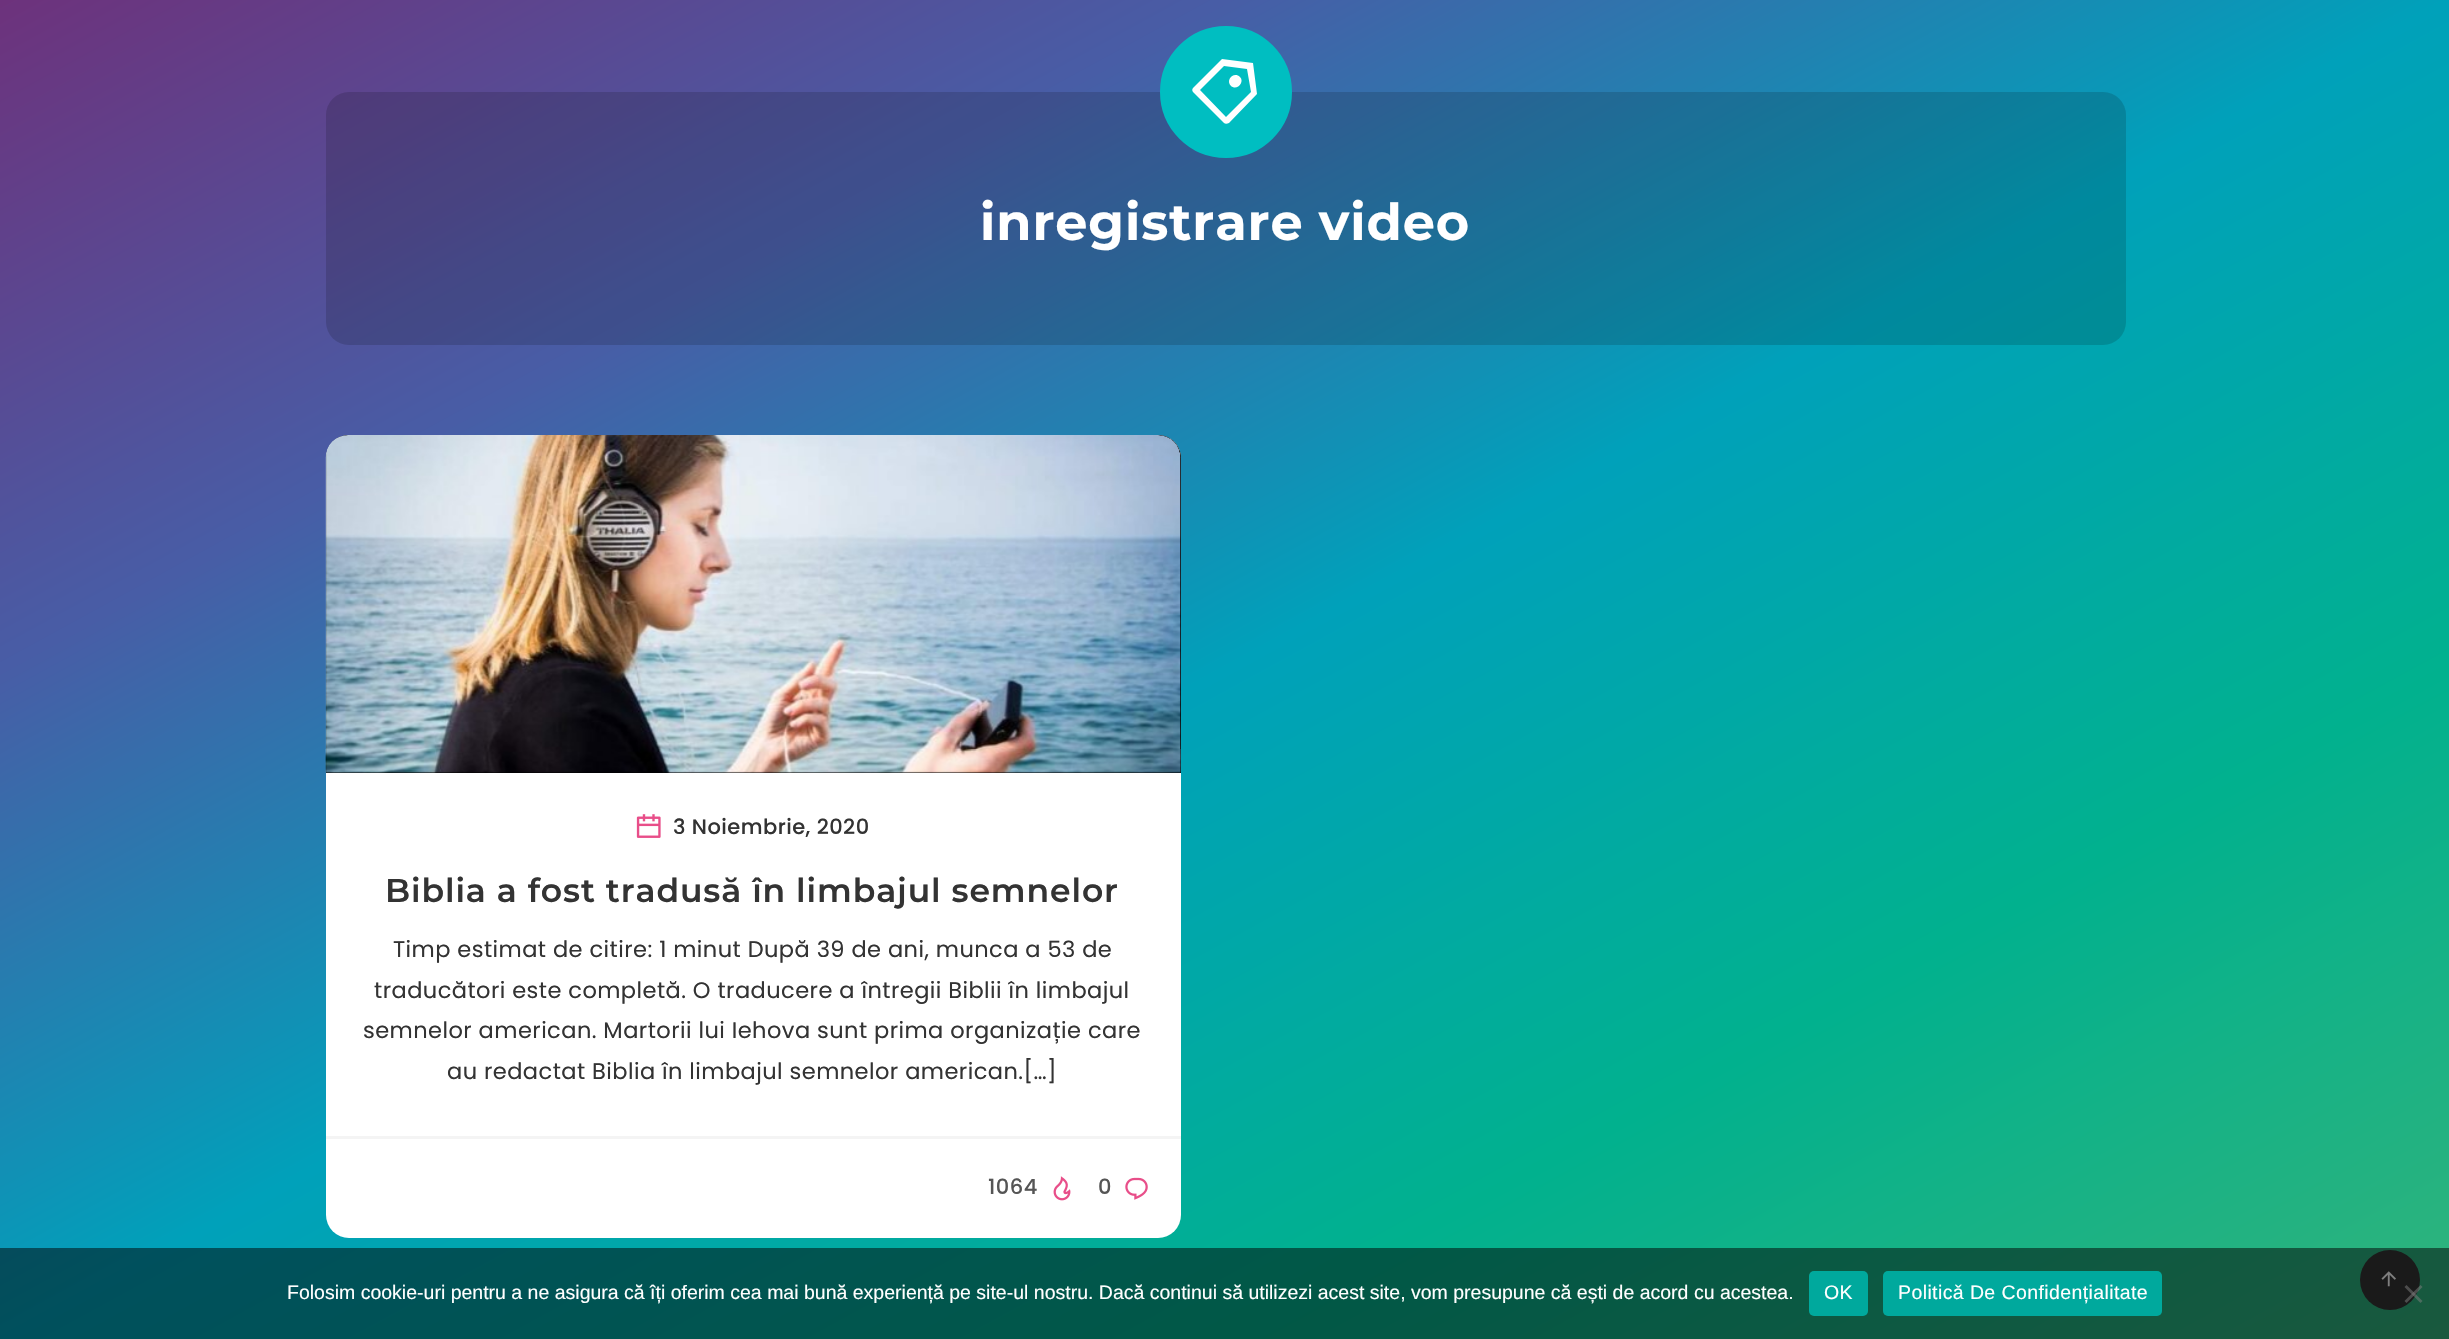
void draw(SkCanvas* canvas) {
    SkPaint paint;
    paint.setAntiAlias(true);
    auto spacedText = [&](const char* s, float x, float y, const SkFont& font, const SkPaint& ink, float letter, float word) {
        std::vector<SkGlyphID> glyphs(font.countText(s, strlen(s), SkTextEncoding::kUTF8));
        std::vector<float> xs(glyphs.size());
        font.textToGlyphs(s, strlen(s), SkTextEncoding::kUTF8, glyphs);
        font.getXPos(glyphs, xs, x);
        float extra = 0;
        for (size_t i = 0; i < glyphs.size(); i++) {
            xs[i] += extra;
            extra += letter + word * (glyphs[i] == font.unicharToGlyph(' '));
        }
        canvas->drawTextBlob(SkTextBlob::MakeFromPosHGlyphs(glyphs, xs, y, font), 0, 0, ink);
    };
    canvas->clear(0xFFFFFFFF);
    {
        const SkColor colors[] = {0xFF6D327C, 0xFF485DA6, 0xFF00A1BA, 0xFF01B18E, 0xFF32B37B};
        const float stops[] = {0, 0.25f, 0.5f, 0.75f, 1};
        const SkPoint ends[] = {{661, -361}, {1789, 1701}};
        paint.setShader(SkGradientShader::MakeLinear(ends, colors, stops, 5, SkTileMode::kClamp));
        paint.setAlpha(255);
    }
    canvas->drawRect(SkRect::MakeXYWH(0, 0, 2449, 1339), paint);
    paint.setShader(nullptr);
    paint.setColor(0x26000000);
    canvas->drawRoundRect(SkRect::MakeXYWH(326, 92, 1800, 253), 23, 23, paint);
    paint.setColor(0xFF00BEC1);
    canvas->drawCircle(1226, 92, 63, paint);
    paint.setStyle(SkPaint::kStroke_Style);
    paint.setStrokeWidth(6);
    canvas->drawCircle(1226, 92, 63, paint);
    paint.setStyle(SkPaint::kFill_Style);
    paint.setColor(0xFFFFFFFF);
    canvas->drawPath(SkPathBuilder().moveTo(1222, 59).lineTo(1253, 63).lineTo(1257, 94).lineTo(1229, 123).cubicTo(1227, 124, 1225, 124, 1224, 123).lineTo(1193, 92).cubicTo(1192, 91, 1192, 89, 1193, 88).close().moveTo(1224, 66).lineTo(1200, 90).lineTo(1226, 117).lineTo(1251, 92).lineTo(1247, 69).close().moveTo(1231, 86).cubicTo(1225, 80, 1234, 71, 1240, 77).cubicTo(1245, 82, 1237, 91, 1231, 86).close().detach(), paint);
    SkFont font1(fontMgr->matchFamilyStyle("Montserrat", SkFontStyle::Bold()), 51);
    font1.setSubpixel(true);
    spacedText("inregistrare video", 980, 240, font1, paint, 0.9f, 0);
    canvas->drawRoundRect(SkRect::MakeXYWH(326, 435, 855, 803), 23, 23, paint);
    paint.setColor(0xFF000000);
    canvas->drawPath(SkPathBuilder().moveTo(349, 435).lineTo(1158, 435).cubicTo(1170.5f, 435, 1181, 445.5f, 1181, 458).lineTo(1181, 773).lineTo(326, 773).lineTo(326, 458).cubicTo(326, 445.5f, 336.5f, 435, 349, 435).close().detach(), paint);
    canvas->drawImageRect(SkImages::DeferredFromEncodedData(SkData::MakeFromFileName("img1.png")), SkRect::MakeXYWH(325, 435, 856, 338), SkSamplingOptions());
    canvas->drawImageRect(SkImages::DeferredFromEncodedData(SkData::MakeFromFileName("img2.png")), SkRect::MakeXYWH(636, 814, 25, 24), SkSamplingOptions());
    SkFont font2(fontMgr->matchFamilyStyle("Poppins", SkFontStyle(500, SkFontStyle::kNormal_Width, SkFontStyle::kUpright_Slant)), 21);
    font2.setSubpixel(true);
    paint.setColor(0xFF333333);
    spacedText("3 Noiembrie, 2020", 673, 834, font2, paint, 0.45f, 0);
    SkFont font3(fontMgr->matchFamilyStyle("Montserrat", SkFontStyle(600, SkFontStyle::kNormal_Width, SkFontStyle::kUpright_Slant)), 33);
    font3.setSubpixel(true);
    spacedText("Biblia a fost tradusă în limbajul semnelor", 385, 902, font3, paint, 0.9f, 0);
    SkFont font4(fontMgr->matchFamilyStyle("Poppins", SkFontStyle::Normal()), 22.5f);
    font4.setSubpixel(true);
    spacedText("Timp estimat de citire: 1 minut După 39 de ani, munca a 53 de", 393, 957, font4, paint, 0.45f, 0);
    spacedText("traducători este completă. O traducere a întregii Biblii în limbajul", 374, 998, font4, paint, 0.45f, 0);
    spacedText("semnelor american. Martorii lui Iehova sunt prima organizație care", 363, 1038, font4, paint, 0.45f, 0);
    spacedText("au redactat Biblia în limbajul semnelor american.[…]", 447, 1079, font4, paint, 0.45f, 0);
    paint.setColor(0xFFF4F4F4);
    canvas->drawRect(SkRect::MakeXYWH(326, 1136, 855, 3), paint);
    paint.setColor(0xFF555555);
    spacedText("1064", 988, 1194, font2, paint, 0.45f, 0);
    canvas->drawImageRect(SkImages::DeferredFromEncodedData(SkData::MakeFromFileName("img3.png")), SkRect::MakeXYWH(1053, 1176, 18, 25), SkSamplingOptions());
    spacedText("0", 1098, 1194, font2, paint, 0.45f, 0);
    canvas->drawImageRect(SkImages::DeferredFromEncodedData(SkData::MakeFromFileName("img4.png")), SkRect::MakeXYWH(1125, 1177, 23, 23), SkSamplingOptions());
    paint.setColor(0xFF333333);
    canvas->drawCircle(2390, 1280, 30, paint);
    canvas->drawImageRect(SkImages::DeferredFromEncodedData(SkData::MakeFromFileName("img5.png")), SkRect::MakeXYWH(2381, 1271, 15, 16), SkSamplingOptions());
    paint.setColor(0x80000000);
    canvas->drawRect(SkRect::MakeXYWH(0, 1248, 2449, 91), paint);
    SkFont font5(fontMgr->matchFamilyStyle("Liberation Sans", SkFontStyle::Normal()), 19.5f);
    font5.setSubpixel(true);
    paint.setColor(0xFFFFFFFF);
    canvas->drawString("Folosim cookie-uri pentru a ne asigura că îți oferim cea mai bună experiență pe site-ul nostru. Dacă continui să utilizezi acest site, vom presupune că ești de acord cu acestea.", 287, 1299, font5, paint);
    paint.setColor(0xFF00A99D);
    canvas->drawRoundRect(SkRect::MakeXYWH(1809, 1271, 59, 45), 5, 5, paint);
    paint.setColor(0xFFFFFFFF);
    spacedText("OK", 1824, 1299, font5, paint, 0.4f, 0);
    paint.setColor(0xFF00A99D);
    canvas->drawRoundRect(SkRect::MakeXYWH(1883, 1271, 279, 45), 5, 5, paint);
    paint.setColor(0xFFFFFFFF);
    spacedText("Politicǎ De Confidențialitate", 1898, 1299, font5, paint, 0.4f, 0);
    paint.setColor(0x80808080);
    canvas->drawPath(SkPathBuilder().moveTo(2420.5f, 1285).lineTo(2422.5f, 1287).lineTo(2406.5f, 1303).lineTo(2404.5f, 1301).close().detach(), paint);
    canvas->drawPath(SkPathBuilder().moveTo(2404.5f, 1287).lineTo(2406.5f, 1285).lineTo(2422.5f, 1301).lineTo(2420.5f, 1303).close().detach(), paint);
}
